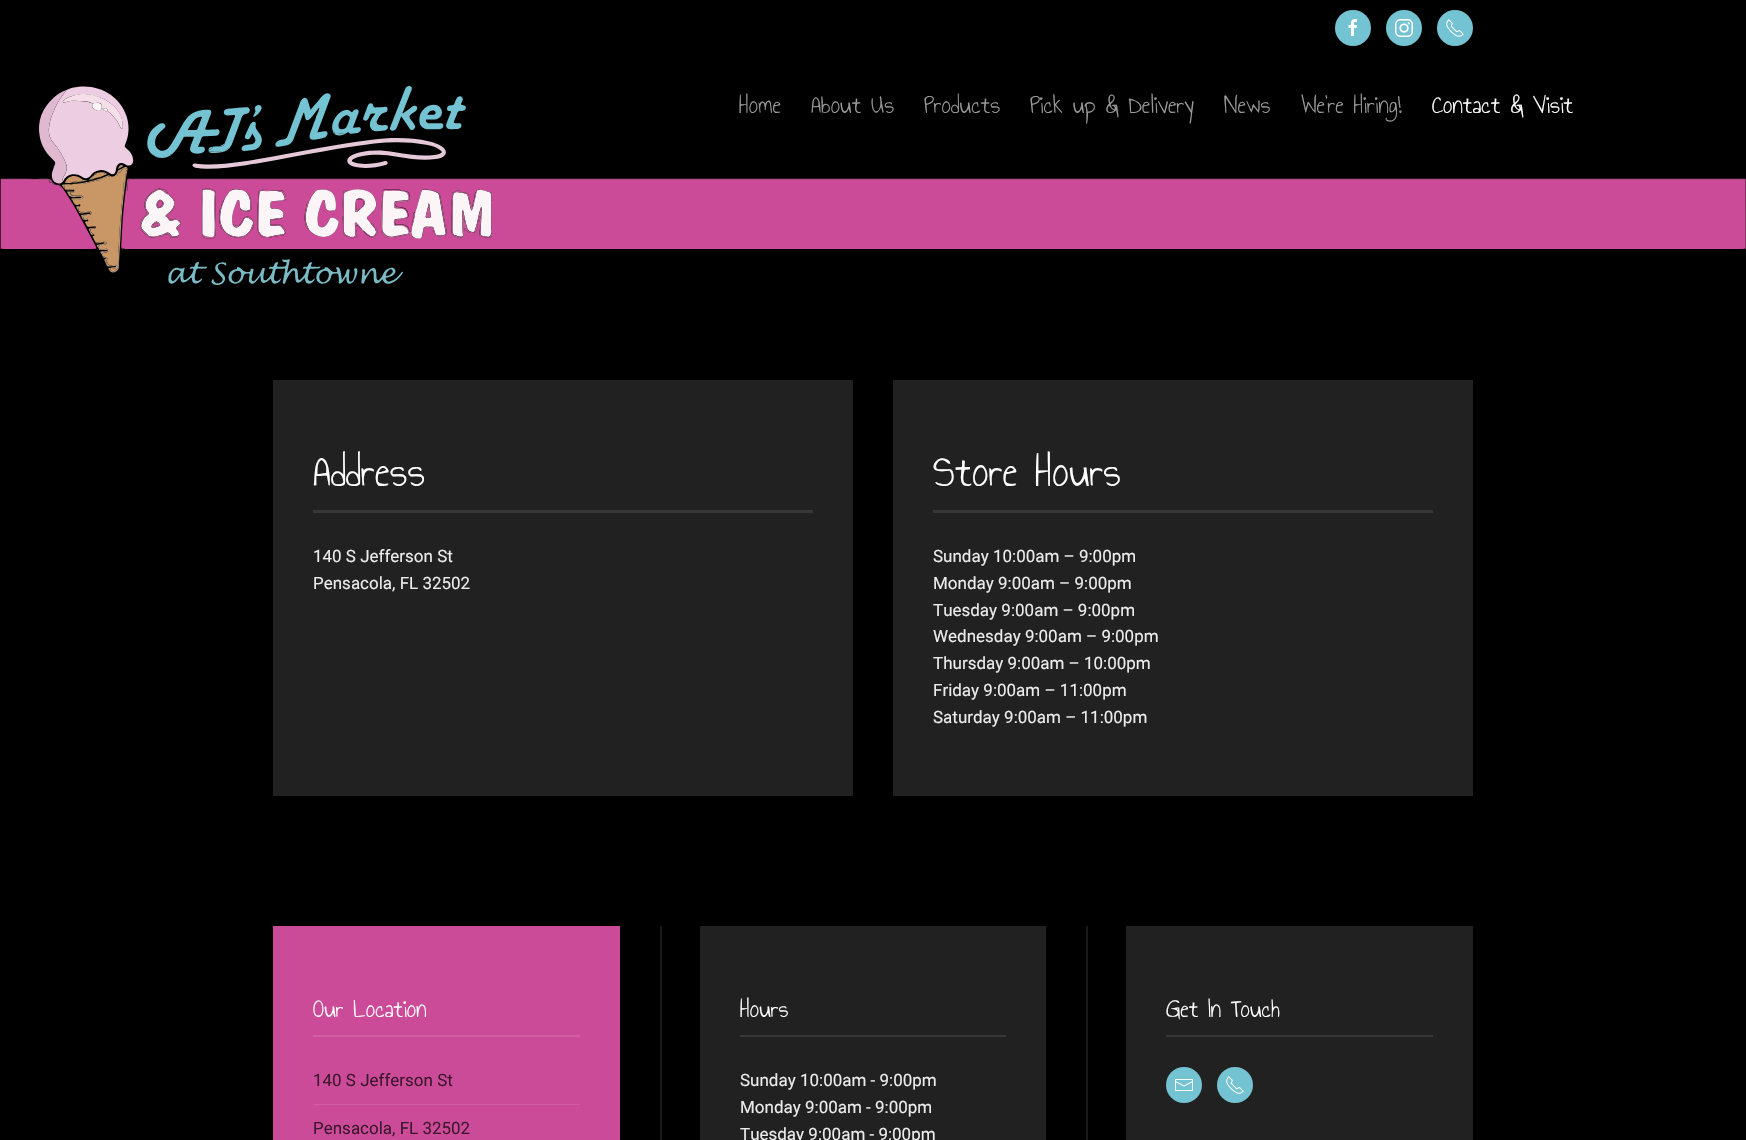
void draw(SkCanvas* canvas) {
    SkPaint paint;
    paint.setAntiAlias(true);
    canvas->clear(0xFF000000);
    paint.setColor(0xFF74C3D3);
    canvas->drawCircle(1353, 28, 18, paint);
    canvas->drawImageRect(SkImages::DeferredFromEncodedData(SkData::MakeFromFileName("img1.png")), SkRect::MakeXYWH(1348, 19, 9, 17), SkSamplingOptions());
    canvas->drawCircle(1404, 28, 18, paint);
    canvas->drawImageRect(SkImages::DeferredFromEncodedData(SkData::MakeFromFileName("img2.png")), SkRect::MakeXYWH(1395, 19, 18, 18), SkSamplingOptions());
    canvas->drawCircle(1455, 28, 18, paint);
    canvas->drawImageRect(SkImages::DeferredFromEncodedData(SkData::MakeFromFileName("img3.png")), SkRect::MakeXYWH(1446, 19, 18, 18), SkSamplingOptions());
    canvas->drawImageRect(SkImages::DeferredFromEncodedData(SkData::MakeFromFileName("img4.png")), SkRect::MakeXYWH(0, 86, 1746, 199), SkSamplingOptions());
    SkFont font1(fontMgr->matchFamilyStyle("Annie Use Your Telescope", SkFontStyle::Normal()), 26);
    font1.setSubpixel(true);
    paint.setColor(0xFF999999);
    canvas->drawString("Home", 739, 113, font1, paint);
    canvas->drawString("About Us", 811, 113, font1, paint);
    canvas->drawString("Products", 924, 113, font1, paint);
    canvas->drawString("Pick up & Delivery", 1030, 113, font1, paint);
    canvas->drawString("News", 1224, 113, font1, paint);
    canvas->drawString("We’re Hiring!", 1301, 113, font1, paint);
    paint.setColor(0xFFFFFFFF);
    canvas->drawString("Contact & Visit", 1432, 113, font1, paint);
    paint.setColor(0xFF212121);
    canvas->drawRect(SkRect::MakeXYWH(273, 380, 580, 416), paint);
    paint.setColor(0xFF373737);
    canvas->drawRect(SkRect::MakeXYWH(313, 510, 500, 3), paint);
    SkFont font2(fontMgr->matchFamilyStyle("Annie Use Your Telescope", SkFontStyle::Normal()), 46);
    font2.setSubpixel(true);
    paint.setColor(0xFFFFFFFF);
    canvas->drawString("Address", 313, 486, font2, paint);
    SkFont font3(fontMgr->matchFamilyStyle("Roboto", SkFontStyle::Normal()), 17);
    font3.setSubpixel(true);
    paint.setColor(0xFFEBEBEB);
    canvas->drawString("140 S Jefferson St", 313, 562, font3, paint);
    canvas->drawString("Pensacola, FL 32502", 313, 589, font3, paint);
    paint.setColor(0xFF212121);
    canvas->drawRect(SkRect::MakeXYWH(893, 380, 580, 416), paint);
    paint.setColor(0xFF373737);
    canvas->drawRect(SkRect::MakeXYWH(933, 510, 500, 3), paint);
    paint.setColor(0xFFFFFFFF);
    canvas->drawString("Store Hours", 933, 486, font2, paint);
    paint.setColor(0xFFEBEBEB);
    canvas->drawString("Sunday 10:00am – 9:00pm", 933, 562, font3, paint);
    canvas->drawString("Monday 9:00am – 9:00pm", 933, 589, font3, paint);
    canvas->drawString("Tuesday 9:00am – 9:00pm", 933, 616, font3, paint);
    canvas->drawString("Wednesday 9:00am – 9:00pm", 933, 642, font3, paint);
    canvas->drawString("Thursday 9:00am – 10:00pm", 933, 669, font3, paint);
    canvas->drawString("Friday 9:00am – 11:00pm", 933, 696, font3, paint);
    canvas->drawString("Saturday 9:00am – 11:00pm", 933, 723, font3, paint);
    paint.setColor(0xFFCC4B98);
    canvas->drawRect(SkRect::MakeXYWH(273, 926, 347, 214), paint);
    paint.setColor(0xFFD15DA2);
    canvas->drawRect(SkRect::MakeXYWH(313, 1035, 267, 2), paint);
    paint.setColor(0xFFFFFFFF);
    canvas->drawString("Our Location", 313, 1017, font1, paint);
    paint.setColor(0xFF3D172E);
    canvas->drawString("140 S Jefferson St", 313, 1086, font3, paint);
    paint.setColor(0xFFD15DA2);
    canvas->drawRect(SkRect::MakeXYWH(313, 1104, 267, 1), paint);
    paint.setColor(0xFF3D172E);
    canvas->drawString("Pensacola, FL 32502", 313, 1134, font3, paint);
    paint.setColor(0xFF1A1A1A);
    canvas->drawRect(SkRect::MakeXYWH(660, 926, 2, 214), paint);
    paint.setColor(0xFF212121);
    canvas->drawRect(SkRect::MakeXYWH(700, 926, 346, 214), paint);
    paint.setColor(0xFF373737);
    canvas->drawRect(SkRect::MakeXYWH(740, 1035, 266, 2), paint);
    paint.setColor(0xFFFFFFFF);
    canvas->drawString("Hours", 740, 1017, font1, paint);
    paint.setColor(0xFFEBEBEB);
    canvas->drawString("Sunday 10:00am - 9:00pm", 740, 1086, font3, paint);
    canvas->drawString("Monday 9:00am - 9:00pm", 740, 1113, font3, paint);
    canvas->drawString("Tuesday 9:00am - 9:00pm", 740, 1140, font3, paint);
    paint.setColor(0xFF1A1A1A);
    canvas->drawRect(SkRect::MakeXYWH(1086, 926, 2, 214), paint);
    paint.setColor(0xFF212121);
    canvas->drawRect(SkRect::MakeXYWH(1126, 926, 347, 214), paint);
    paint.setColor(0xFF373737);
    canvas->drawRect(SkRect::MakeXYWH(1166, 1035, 267, 2), paint);
    paint.setColor(0xFFFFFFFF);
    canvas->drawString("Get In Touch", 1166, 1017, font1, paint);
    paint.setColor(0xFF74C3D3);
    canvas->drawCircle(1184, 1085, 18, paint);
    canvas->drawImageRect(SkImages::DeferredFromEncodedData(SkData::MakeFromFileName("img5.png")), SkRect::MakeXYWH(1175, 1079, 18, 12), SkSamplingOptions());
    canvas->drawCircle(1235, 1085, 18, paint);
    canvas->drawImageRect(SkImages::DeferredFromEncodedData(SkData::MakeFromFileName("img3.png")), SkRect::MakeXYWH(1226, 1076, 18, 18), SkSamplingOptions());
}
